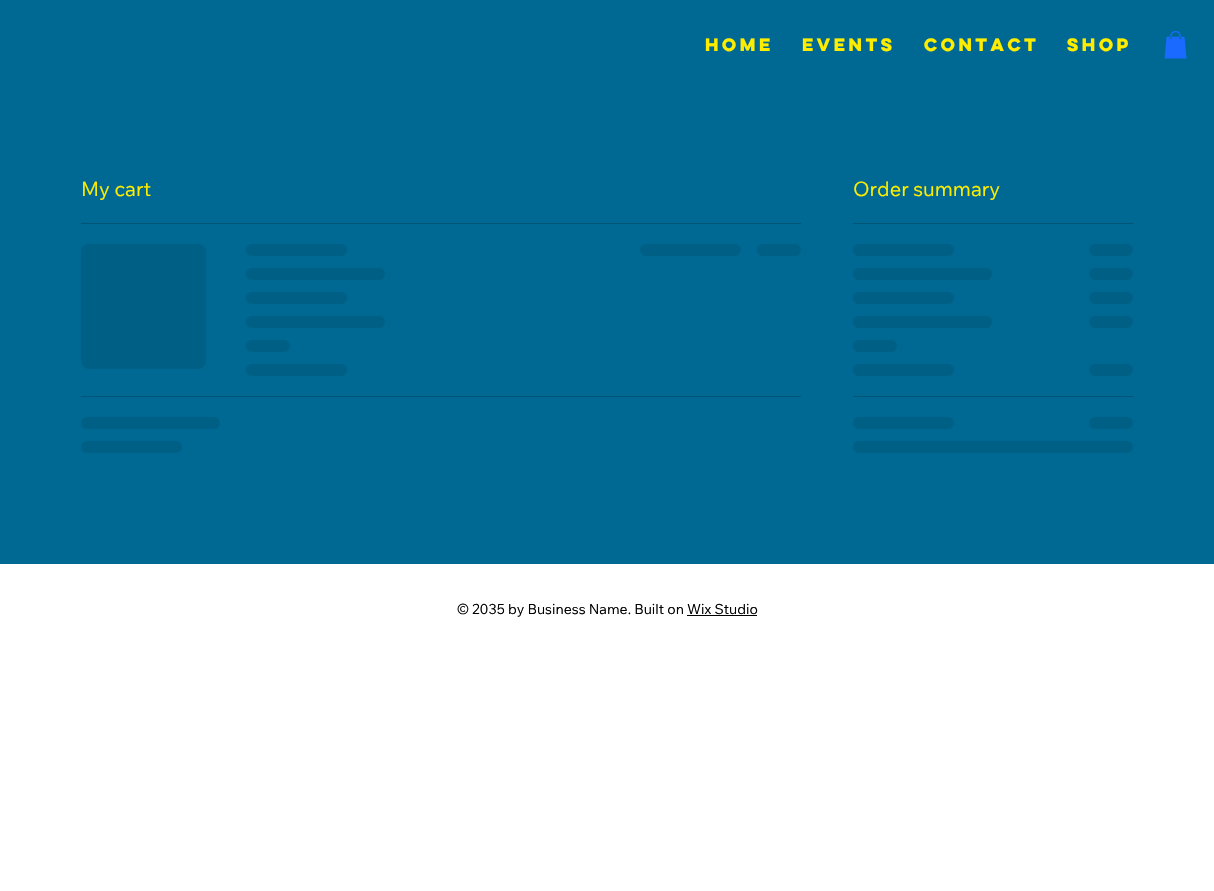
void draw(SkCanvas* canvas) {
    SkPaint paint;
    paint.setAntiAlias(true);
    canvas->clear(0xFFFFFFFF);
    paint.setColor(0xFF006993);
    canvas->drawRect(SkRect::MakeXYWH(0, 0, 1214, 564), paint);
    SkFont font1(fontMgr->matchFamilyStyle("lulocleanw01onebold", SkFontStyle::Bold()), 16);
    font1.setSubpixel(true);
    paint.setColor(0xFFFFED00);
    canvas->drawString("Home", 705, 51, font1, paint);
    canvas->drawString("Events", 802, 51, font1, paint);
    canvas->drawString("Contact", 924, 51, font1, paint);
    canvas->drawString("SHOP", 1067, 51, font1, paint);
    canvas->drawImageRect(SkImages::DeferredFromEncodedData(SkData::MakeFromFileName("img1.png")), SkRect::MakeXYWH(1164, 31, 23, 28), SkSamplingOptions());
    paint.setColor(0xFF005476);
    canvas->drawRect(SkRect::MakeXYWH(81, 223, 720, 1), paint);
    SkFont font2(fontMgr->matchFamilyStyle("Wix Madefor Text", SkFontStyle::Normal()), 20);
    font2.setSubpixel(true);
    paint.setColor(0xFFFFED00);
    canvas->drawString("My cart", 81, 196, font2, paint);
    {
        const SkColor colors[] = {0xFF005F84, 0xFF005476, 0xFF005F84};
        const float stops[] = {0.25f, 0.37f, 0.63f};
        const SkPoint ends[] = {{81, 307}, {581, 307}};
        paint.setShader(SkGradientShader::MakeLinear(ends, colors, stops, 3, SkTileMode::kClamp));
        paint.setAlpha(255);
    }
    canvas->drawRoundRect(SkRect::MakeXYWH(81, 244, 125, 125), 8, 8, paint);
    {
        const SkColor colors[] = {0xFF005F84, 0xFF005476, 0xFF005F84};
        const float stops[] = {0.25f, 0.37f, 0.63f};
        const SkPoint ends[] = {{246, 250}, {650, 250}};
        paint.setShader(SkGradientShader::MakeLinear(ends, colors, stops, 3, SkTileMode::kClamp));
        paint.setAlpha(255);
    }
    canvas->drawRoundRect(SkRect::MakeXYWH(246, 244, 101, 12), 6, 6, paint);
    {
        const SkColor colors[] = {0xFF005F84, 0xFF005476, 0xFF005F84};
        const float stops[] = {0.25f, 0.37f, 0.63f};
        const SkPoint ends[] = {{246, 274}, {802, 274}};
        paint.setShader(SkGradientShader::MakeLinear(ends, colors, stops, 3, SkTileMode::kClamp));
        paint.setAlpha(255);
    }
    canvas->drawRoundRect(SkRect::MakeXYWH(246, 268, 139, 12), 6, 6, paint);
    {
        const SkColor colors[] = {0xFF005F84, 0xFF005476, 0xFF005F84};
        const float stops[] = {0.25f, 0.37f, 0.63f};
        const SkPoint ends[] = {{246, 298}, {650, 298}};
        paint.setShader(SkGradientShader::MakeLinear(ends, colors, stops, 3, SkTileMode::kClamp));
        paint.setAlpha(255);
    }
    canvas->drawRoundRect(SkRect::MakeXYWH(246, 292, 101, 12), 6, 6, paint);
    {
        const SkColor colors[] = {0xFF005F84, 0xFF005476, 0xFF005F84};
        const float stops[] = {0.25f, 0.37f, 0.63f};
        const SkPoint ends[] = {{246, 322}, {802, 322}};
        paint.setShader(SkGradientShader::MakeLinear(ends, colors, stops, 3, SkTileMode::kClamp));
        paint.setAlpha(255);
    }
    canvas->drawRoundRect(SkRect::MakeXYWH(246, 316, 139, 12), 6, 6, paint);
    {
        const SkColor colors[] = {0xFF005F84, 0xFF005476, 0xFF005F84};
        const float stops[] = {0.25f, 0.37f, 0.63f};
        const SkPoint ends[] = {{246, 346}, {422, 346}};
        paint.setShader(SkGradientShader::MakeLinear(ends, colors, stops, 3, SkTileMode::kClamp));
        paint.setAlpha(255);
    }
    canvas->drawRoundRect(SkRect::MakeXYWH(246, 340, 44, 12), 6, 6, paint);
    {
        const SkColor colors[] = {0xFF005F84, 0xFF005476, 0xFF005F84};
        const float stops[] = {0.25f, 0.37f, 0.63f};
        const SkPoint ends[] = {{246, 370}, {650, 370}};
        paint.setShader(SkGradientShader::MakeLinear(ends, colors, stops, 3, SkTileMode::kClamp));
        paint.setAlpha(255);
    }
    canvas->drawRoundRect(SkRect::MakeXYWH(246, 364, 101, 12), 6, 6, paint);
    {
        const SkColor colors[] = {0xFF005F84, 0xFF005476, 0xFF005F84};
        const float stops[] = {0.25f, 0.37f, 0.63f};
        const SkPoint ends[] = {{640, 250}, {1044, 250}};
        paint.setShader(SkGradientShader::MakeLinear(ends, colors, stops, 3, SkTileMode::kClamp));
        paint.setAlpha(255);
    }
    canvas->drawRoundRect(SkRect::MakeXYWH(640, 244, 101, 12), 6, 6, paint);
    {
        const SkColor colors[] = {0xFF005F84, 0xFF005476, 0xFF005F84};
        const float stops[] = {0.25f, 0.37f, 0.63f};
        const SkPoint ends[] = {{757, 250}, {933, 250}};
        paint.setShader(SkGradientShader::MakeLinear(ends, colors, stops, 3, SkTileMode::kClamp));
        paint.setAlpha(255);
    }
    canvas->drawRoundRect(SkRect::MakeXYWH(757, 244, 44, 12), 6, 6, paint);
    paint.setShader(nullptr);
    paint.setColor(0xFF005476);
    canvas->drawRect(SkRect::MakeXYWH(81, 396, 720, 1), paint);
    {
        const SkColor colors[] = {0xFF005F84, 0xFF005476, 0xFF005F84};
        const float stops[] = {0.25f, 0.37f, 0.63f};
        const SkPoint ends[] = {{81, 423}, {637, 423}};
        paint.setShader(SkGradientShader::MakeLinear(ends, colors, stops, 3, SkTileMode::kClamp));
        paint.setAlpha(255);
    }
    canvas->drawRoundRect(SkRect::MakeXYWH(81, 417, 139, 12), 6, 6, paint);
    {
        const SkColor colors[] = {0xFF005F84, 0xFF005476, 0xFF005F84};
        const float stops[] = {0.25f, 0.37f, 0.63f};
        const SkPoint ends[] = {{81, 447}, {485, 447}};
        paint.setShader(SkGradientShader::MakeLinear(ends, colors, stops, 3, SkTileMode::kClamp));
        paint.setAlpha(255);
    }
    canvas->drawRoundRect(SkRect::MakeXYWH(81, 441, 101, 12), 6, 6, paint);
    paint.setShader(nullptr);
    paint.setColor(0xFF005476);
    canvas->drawRect(SkRect::MakeXYWH(853, 223, 280, 1), paint);
    paint.setColor(0xFFFFED00);
    canvas->drawString("Order summary", 853, 196, font2, paint);
    {
        const SkColor colors[] = {0xFF005F84, 0xFF005476, 0xFF005F84};
        const float stops[] = {0.25f, 0.37f, 0.63f};
        const SkPoint ends[] = {{853, 250}, {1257, 250}};
        paint.setShader(SkGradientShader::MakeLinear(ends, colors, stops, 3, SkTileMode::kClamp));
        paint.setAlpha(255);
    }
    canvas->drawRoundRect(SkRect::MakeXYWH(853, 244, 101, 12), 6, 6, paint);
    {
        const SkColor colors[] = {0xFF005F84, 0xFF005476, 0xFF005F84};
        const float stops[] = {0.25f, 0.37f, 0.63f};
        const SkPoint ends[] = {{1089, 250}, {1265, 250}};
        paint.setShader(SkGradientShader::MakeLinear(ends, colors, stops, 3, SkTileMode::kClamp));
        paint.setAlpha(255);
    }
    canvas->drawRoundRect(SkRect::MakeXYWH(1089, 244, 44, 12), 6, 6, paint);
    {
        const SkColor colors[] = {0xFF005F84, 0xFF005476, 0xFF005F84};
        const float stops[] = {0.25f, 0.37f, 0.63f};
        const SkPoint ends[] = {{853, 274}, {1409, 274}};
        paint.setShader(SkGradientShader::MakeLinear(ends, colors, stops, 3, SkTileMode::kClamp));
        paint.setAlpha(255);
    }
    canvas->drawRoundRect(SkRect::MakeXYWH(853, 268, 139, 12), 6, 6, paint);
    {
        const SkColor colors[] = {0xFF005F84, 0xFF005476, 0xFF005F84};
        const float stops[] = {0.25f, 0.37f, 0.63f};
        const SkPoint ends[] = {{1089, 274}, {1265, 274}};
        paint.setShader(SkGradientShader::MakeLinear(ends, colors, stops, 3, SkTileMode::kClamp));
        paint.setAlpha(255);
    }
    canvas->drawRoundRect(SkRect::MakeXYWH(1089, 268, 44, 12), 6, 6, paint);
    {
        const SkColor colors[] = {0xFF005F84, 0xFF005476, 0xFF005F84};
        const float stops[] = {0.25f, 0.37f, 0.63f};
        const SkPoint ends[] = {{853, 298}, {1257, 298}};
        paint.setShader(SkGradientShader::MakeLinear(ends, colors, stops, 3, SkTileMode::kClamp));
        paint.setAlpha(255);
    }
    canvas->drawRoundRect(SkRect::MakeXYWH(853, 292, 101, 12), 6, 6, paint);
    {
        const SkColor colors[] = {0xFF005F84, 0xFF005476, 0xFF005F84};
        const float stops[] = {0.25f, 0.37f, 0.63f};
        const SkPoint ends[] = {{1089, 298}, {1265, 298}};
        paint.setShader(SkGradientShader::MakeLinear(ends, colors, stops, 3, SkTileMode::kClamp));
        paint.setAlpha(255);
    }
    canvas->drawRoundRect(SkRect::MakeXYWH(1089, 292, 44, 12), 6, 6, paint);
    {
        const SkColor colors[] = {0xFF005F84, 0xFF005476, 0xFF005F84};
        const float stops[] = {0.25f, 0.37f, 0.63f};
        const SkPoint ends[] = {{853, 322}, {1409, 322}};
        paint.setShader(SkGradientShader::MakeLinear(ends, colors, stops, 3, SkTileMode::kClamp));
        paint.setAlpha(255);
    }
    canvas->drawRoundRect(SkRect::MakeXYWH(853, 316, 139, 12), 6, 6, paint);
    {
        const SkColor colors[] = {0xFF005F84, 0xFF005476, 0xFF005F84};
        const float stops[] = {0.25f, 0.37f, 0.63f};
        const SkPoint ends[] = {{1089, 322}, {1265, 322}};
        paint.setShader(SkGradientShader::MakeLinear(ends, colors, stops, 3, SkTileMode::kClamp));
        paint.setAlpha(255);
    }
    canvas->drawRoundRect(SkRect::MakeXYWH(1089, 316, 44, 12), 6, 6, paint);
    {
        const SkColor colors[] = {0xFF005F84, 0xFF005476, 0xFF005F84};
        const float stops[] = {0.25f, 0.37f, 0.63f};
        const SkPoint ends[] = {{853, 346}, {1029, 346}};
        paint.setShader(SkGradientShader::MakeLinear(ends, colors, stops, 3, SkTileMode::kClamp));
        paint.setAlpha(255);
    }
    canvas->drawRoundRect(SkRect::MakeXYWH(853, 340, 44, 12), 6, 6, paint);
    {
        const SkColor colors[] = {0xFF005F84, 0xFF005476, 0xFF005F84};
        const float stops[] = {0.25f, 0.37f, 0.63f};
        const SkPoint ends[] = {{853, 370}, {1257, 370}};
        paint.setShader(SkGradientShader::MakeLinear(ends, colors, stops, 3, SkTileMode::kClamp));
        paint.setAlpha(255);
    }
    canvas->drawRoundRect(SkRect::MakeXYWH(853, 364, 101, 12), 6, 6, paint);
    {
        const SkColor colors[] = {0xFF005F84, 0xFF005476, 0xFF005F84};
        const float stops[] = {0.25f, 0.37f, 0.63f};
        const SkPoint ends[] = {{1089, 370}, {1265, 370}};
        paint.setShader(SkGradientShader::MakeLinear(ends, colors, stops, 3, SkTileMode::kClamp));
        paint.setAlpha(255);
    }
    canvas->drawRoundRect(SkRect::MakeXYWH(1089, 364, 44, 12), 6, 6, paint);
    paint.setShader(nullptr);
    paint.setColor(0xFF005476);
    canvas->drawRect(SkRect::MakeXYWH(853, 396, 280, 1), paint);
    {
        const SkColor colors[] = {0xFF005F84, 0xFF005476, 0xFF005F84};
        const float stops[] = {0.25f, 0.37f, 0.63f};
        const SkPoint ends[] = {{853, 423}, {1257, 423}};
        paint.setShader(SkGradientShader::MakeLinear(ends, colors, stops, 3, SkTileMode::kClamp));
        paint.setAlpha(255);
    }
    canvas->drawRoundRect(SkRect::MakeXYWH(853, 417, 101, 12), 6, 6, paint);
    {
        const SkColor colors[] = {0xFF005F84, 0xFF005476, 0xFF005F84};
        const float stops[] = {0.25f, 0.37f, 0.63f};
        const SkPoint ends[] = {{1089, 423}, {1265, 423}};
        paint.setShader(SkGradientShader::MakeLinear(ends, colors, stops, 3, SkTileMode::kClamp));
        paint.setAlpha(255);
    }
    canvas->drawRoundRect(SkRect::MakeXYWH(1089, 417, 44, 12), 6, 6, paint);
    {
        const SkColor colors[] = {0xFF005F84, 0xFF005476, 0xFF005F84};
        const float stops[] = {0.25f, 0.37f, 0.63f};
        const SkPoint ends[] = {{853, 447}, {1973, 447}};
        paint.setShader(SkGradientShader::MakeLinear(ends, colors, stops, 3, SkTileMode::kClamp));
        paint.setAlpha(255);
    }
    canvas->drawRoundRect(SkRect::MakeXYWH(853, 441, 280, 12), 6, 6, paint);
    SkFont font3(fontMgr->matchFamilyStyle("Wix Madefor Text", SkFontStyle::Normal()), 14);
    font3.setSubpixel(true);
    paint.setShader(nullptr);
    paint.setColor(0xFF000000);
    canvas->drawString("© 2035 by Business Name. Built on Wix Studio", 457, 614, font3, paint);
    canvas->drawRect(SkRect::MakeXYWH(687, 615, 70, 1), paint);
}
